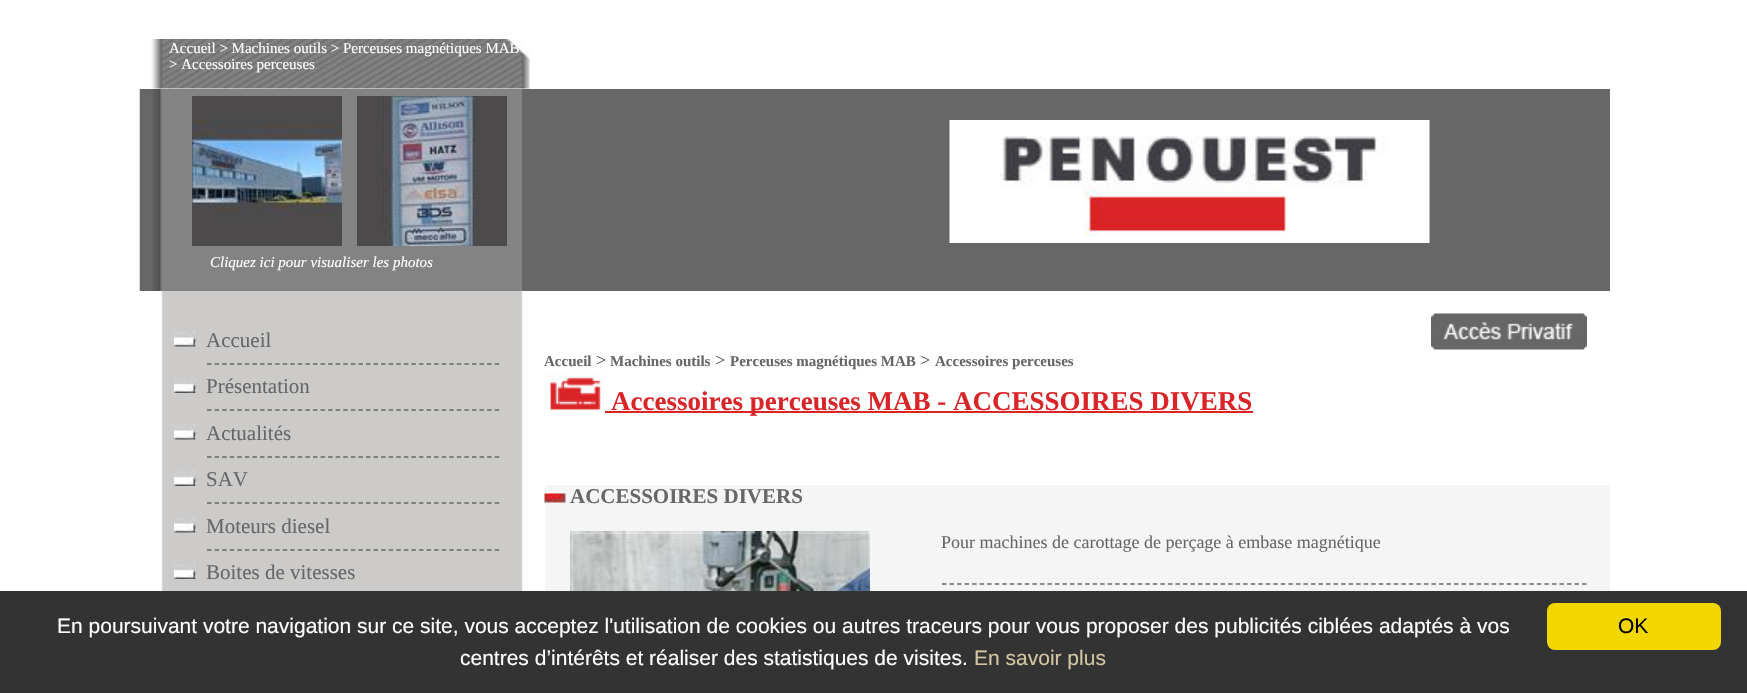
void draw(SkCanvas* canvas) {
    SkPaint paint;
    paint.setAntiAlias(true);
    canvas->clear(0xFFFFFFFF);
    canvas->drawImageRect(SkImages::DeferredFromEncodedData(SkData::MakeFromFileName("img4.png")), SkRect::MakeXYWH(139, 88, 383, 203), SkSamplingOptions());
    paint.setColor(0xFFFFFFFF);
    canvas->drawRect(SkRect::MakeXYWH(140, 88, 382, 1), paint);
    canvas->drawImageRect(SkImages::DeferredFromEncodedData(SkData::MakeFromFileName("img1.png")), SkRect::MakeXYWH(151, 39, 379, 50), SkSamplingOptions());
    SkFont font1(fontMgr->matchFamilyStyle("Liberation Serif", SkFontStyle::Normal()), 15);
    font1.setSubpixel(true);
    canvas->drawString("Accueil > Machines outils > Perceuses magnétiques MAB", 169, 53, font1, paint);
    canvas->drawString("> Accessoires perceuses", 169, 69, font1, paint);
    paint.setColor(0xFF676767);
    canvas->drawRect(SkRect::MakeXYWH(522, 89, 1088, 202), paint);
    canvas->drawImageRect(SkImages::DeferredFromEncodedData(SkData::MakeFromFileName("img2.png")), SkRect::MakeXYWH(949, 120, 481, 123), SkSamplingOptions());
    canvas->drawImageRect(SkImages::DeferredFromEncodedData(SkData::MakeFromFileName("img3.png")), SkRect::MakeXYWH(161, 291, 362, 300), SkSamplingOptions());
    canvas->drawImageRect(SkImages::DeferredFromEncodedData(SkData::MakeFromFileName("img5.png")), SkRect::MakeXYWH(192, 96, 150, 150), SkSamplingOptions());
    canvas->drawImageRect(SkImages::DeferredFromEncodedData(SkData::MakeFromFileName("img6.png")), SkRect::MakeXYWH(357, 96, 150, 150), SkSamplingOptions());
    SkFont font2(fontMgr->matchFamilyStyle("Liberation Serif", SkFontStyle::Italic()), 15);
    font2.setSubpixel(true);
    paint.setColor(0xFFFFFFFF);
    canvas->drawString("Cliquez ici pour visualiser les photos", 210, 267, font2, paint);
    canvas->save();
    canvas->clipRect(SkRect::MakeXYWH(140, 291, 360, 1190));
    paint.setStyle(SkPaint::kStroke_Style);
    paint.setStrokeWidth(1.5f);
    paint.setColor(0xFF676767);
    paint.setPathEffect(SkDashPathEffect::Make({{4.5f, 3.07f}}, 0));
    canvas->drawPath(SkPathBuilder().moveTo(207, 364).lineTo(507, 364).detach(), paint);
    paint.setPathEffect(nullptr);
    canvas->restore();
    canvas->drawImageRect(SkImages::DeferredFromEncodedData(SkData::MakeFromFileName("img7.png")), SkRect::MakeXYWH(174, 331, 23, 16), SkSamplingOptions());
    SkFont font3(fontMgr->matchFamilyStyle("Liberation Serif", SkFontStyle::Normal()), 21);
    font3.setSubpixel(true);
    paint.setStyle(SkPaint::kFill_Style);
    canvas->drawString("Accueil", 206, 347, font3, paint);
    canvas->save();
    canvas->clipRect(SkRect::MakeXYWH(140, 291, 360, 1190));
    paint.setStyle(SkPaint::kStroke_Style);
    paint.setPathEffect(SkDashPathEffect::Make({{4.5f, 3.07f}}, 0));
    canvas->drawPath(SkPathBuilder().moveTo(207, 410).lineTo(507, 410).detach(), paint);
    paint.setPathEffect(nullptr);
    canvas->restore();
    canvas->drawImageRect(SkImages::DeferredFromEncodedData(SkData::MakeFromFileName("img8.png")), SkRect::MakeXYWH(174, 378, 23, 15), SkSamplingOptions());
    paint.setStyle(SkPaint::kFill_Style);
    canvas->drawString("Présentation", 206, 393, font3, paint);
    canvas->save();
    canvas->clipRect(SkRect::MakeXYWH(140, 291, 360, 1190));
    paint.setStyle(SkPaint::kStroke_Style);
    paint.setPathEffect(SkDashPathEffect::Make({{4.5f, 3.07f}}, 0));
    canvas->drawPath(SkPathBuilder().moveTo(207, 457).lineTo(507, 457).detach(), paint);
    paint.setPathEffect(nullptr);
    canvas->restore();
    canvas->drawImageRect(SkImages::DeferredFromEncodedData(SkData::MakeFromFileName("img7.png")), SkRect::MakeXYWH(174, 424, 23, 16), SkSamplingOptions());
    paint.setStyle(SkPaint::kFill_Style);
    canvas->drawString("Actualités", 206, 440, font3, paint);
    canvas->save();
    canvas->clipRect(SkRect::MakeXYWH(140, 291, 360, 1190));
    paint.setStyle(SkPaint::kStroke_Style);
    paint.setPathEffect(SkDashPathEffect::Make({{4.5f, 3.07f}}, 0));
    canvas->drawPath(SkPathBuilder().moveTo(207, 503).lineTo(507, 503).detach(), paint);
    paint.setPathEffect(nullptr);
    canvas->restore();
    canvas->drawImageRect(SkImages::DeferredFromEncodedData(SkData::MakeFromFileName("img8.png")), SkRect::MakeXYWH(174, 471, 23, 15), SkSamplingOptions());
    paint.setStyle(SkPaint::kFill_Style);
    canvas->drawString("SAV", 206, 486, font3, paint);
    canvas->save();
    canvas->clipRect(SkRect::MakeXYWH(140, 291, 360, 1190));
    paint.setStyle(SkPaint::kStroke_Style);
    paint.setPathEffect(SkDashPathEffect::Make({{4.5f, 3.07f}}, 0));
    canvas->drawPath(SkPathBuilder().moveTo(207, 550).lineTo(507, 550).detach(), paint);
    paint.setPathEffect(nullptr);
    canvas->restore();
    canvas->drawImageRect(SkImages::DeferredFromEncodedData(SkData::MakeFromFileName("img7.png")), SkRect::MakeXYWH(174, 517, 23, 16), SkSamplingOptions());
    paint.setStyle(SkPaint::kFill_Style);
    canvas->drawString("Moteurs diesel", 206, 533, font3, paint);
    canvas->drawImageRect(SkImages::DeferredFromEncodedData(SkData::MakeFromFileName("img8.png")), SkRect::MakeXYWH(174, 564, 23, 15), SkSamplingOptions());
    canvas->drawString("Boites de vitesses", 206, 579, font3, paint);
    canvas->drawImageRect(SkImages::DeferredFromEncodedData(SkData::MakeFromFileName("img9.png")), SkRect::MakeXYWH(1431, 313, 156, 37), SkSamplingOptions());
    SkFont font4(fontMgr->matchFamilyStyle("Liberation Serif", SkFontStyle::Bold()), 15);
    font4.setSubpixel(true);
    canvas->drawString("Accueil", 544, 366, font4, paint);
    SkFont font5(fontMgr->matchFamilyStyle("Liberation Serif", SkFontStyle::Normal()), 18);
    font5.setSubpixel(true);
    paint.setColor(0xFF4C4B4B);
    canvas->drawString(">", 596, 366, font5, paint);
    paint.setColor(0xFF676767);
    canvas->drawString("Machines outils", 610, 366, font4, paint);
    paint.setColor(0xFF4C4B4B);
    canvas->drawString(">", 715, 366, font5, paint);
    paint.setColor(0xFF676767);
    canvas->drawString("Perceuses magnétiques MAB", 730, 366, font4, paint);
    paint.setColor(0xFF4C4B4B);
    canvas->drawString(">", 920, 366, font5, paint);
    paint.setColor(0xFF676767);
    canvas->drawString("Accessoires perceuses", 935, 366, font4, paint);
    canvas->drawImageRect(SkImages::DeferredFromEncodedData(SkData::MakeFromFileName("img10.png")), SkRect::MakeXYWH(545, 372, 60, 38), SkSamplingOptions());
    paint.setColor(0xFFDA2427);
    canvas->drawRect(SkRect::MakeXYWH(605, 411, 648, 2), paint);
    SkFont font6(fontMgr->matchFamilyStyle("Liberation Serif", SkFontStyle::Bold()), 27);
    font6.setSubpixel(true);
    canvas->drawString("Accessoires perceuses MAB - ACCESSOIRES DIVERS", 611, 410, font6, paint);
    paint.setColor(0xFFF5F5F5);
    canvas->drawRect(SkRect::MakeXYWH(545, 485, 1065, 106), paint);
    canvas->drawImageRect(SkImages::DeferredFromEncodedData(SkData::MakeFromFileName("img11.png")), SkRect::MakeXYWH(544, 493, 22, 10), SkSamplingOptions());
    SkFont font7(fontMgr->matchFamilyStyle("Liberation Serif", SkFontStyle::Bold()), 21);
    font7.setSubpixel(true);
    paint.setColor(0xFF676767);
    canvas->drawString("ACCESSOIRES DIVERS", 570, 503, font7, paint);
    canvas->drawImageRect(SkImages::DeferredFromEncodedData(SkData::MakeFromFileName("img12.png")), SkRect::MakeXYWH(570, 531, 300, 60), SkSamplingOptions());
    paint.setStyle(SkPaint::kStroke_Style);
    paint.setPathEffect(SkDashPathEffect::Make({{4.5f, 3.03f}}, 0));
    canvas->drawPath(SkPathBuilder().moveTo(942, 584).lineTo(1587, 584).detach(), paint);
    paint.setPathEffect(nullptr);
    paint.setStyle(SkPaint::kFill_Style);
    canvas->drawString("Pour machines de carottage de perçage à embase magnétique", 941, 548, font5, paint);
    paint.setColor(0xFF333333);
    canvas->drawRect(SkRect::MakeXYWH(0, 591, 1747, 102), paint);
    SkFont font8(fontMgr->matchFamilyStyle("Liberation Sans", SkFontStyle::Normal()), 21);
    font8.setSubpixel(true);
    paint.setColor(0xFFFFFFFF);
    canvas->drawString("En poursuivant votre navigation sur ce site, vous acceptez l'utilisation de cookies ou autres traceurs pour vous proposer des publicités ciblées adaptés à vos", 57, 633, font8, paint);
    canvas->drawString("centres d’intérêts et réaliser des statistiques de visites.", 460, 665, font8, paint);
    paint.setColor(0xFFD2C5A3);
    canvas->drawString("En savoir plus", 974, 665, font8, paint);
    paint.setColor(0xFFF1D600);
    canvas->drawRoundRect(SkRect::MakeXYWH(1547, 603, 174, 47), 8, 8, paint);
    paint.setColor(0xFF000000);
    canvas->drawString("OK", 1618, 633, font8, paint);
}
